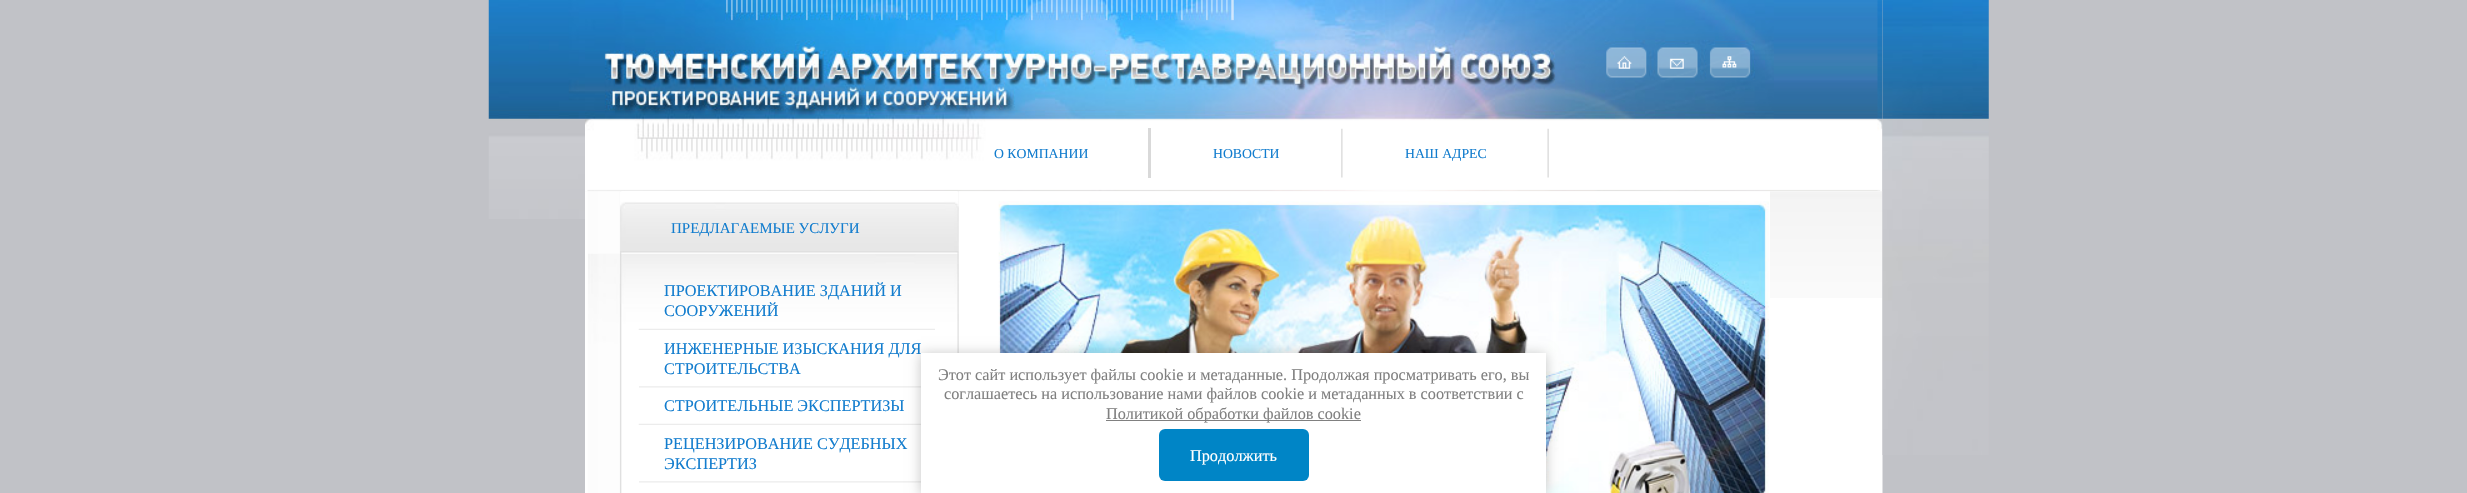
void draw(SkCanvas* canvas) {
    SkPaint paint;
    paint.setAntiAlias(true);
    canvas->clear(0xFFC1C2C7);
    canvas->drawImageRect(SkImages::DeferredFromEncodedData(SkData::MakeFromFileName("img1.png")), SkRect::MakeXYWH(488, 0, 97, 219), SkSamplingOptions());
    canvas->drawImageRect(SkImages::DeferredFromEncodedData(SkData::MakeFromFileName("img2.png")), SkRect::MakeXYWH(1773, 0, 110, 191), SkSamplingOptions());
    canvas->drawImageRect(SkImages::DeferredFromEncodedData(SkData::MakeFromFileName("img3.png")), SkRect::MakeXYWH(1877, 0, 6, 191), SkSamplingOptions());
    canvas->drawImageRect(SkImages::DeferredFromEncodedData(SkData::MakeFromFileName("img4.png")), SkRect::MakeXYWH(585, 0, 1189, 191), SkSamplingOptions());
    canvas->drawImageRect(SkImages::DeferredFromEncodedData(SkData::MakeFromFileName("img5.png")), SkRect::MakeXYWH(1605, 45, 44, 35), SkSamplingOptions());
    canvas->drawImageRect(SkImages::DeferredFromEncodedData(SkData::MakeFromFileName("img6.png")), SkRect::MakeXYWH(1655, 45, 45, 35), SkSamplingOptions());
    canvas->drawImageRect(SkImages::DeferredFromEncodedData(SkData::MakeFromFileName("img7.png")), SkRect::MakeXYWH(1706, 45, 45, 35), SkSamplingOptions());
    SkFont font1(fontMgr->matchFamilyStyle("Liberation Serif", SkFontStyle::Normal()), 13.75f);
    font1.setSubpixel(true);
    paint.setColor(0xFF137DCE);
    canvas->drawString("О КОМПАНИИ", 994, 158, font1, paint);
    paint.setColor(0xFFD9D9D9);
    canvas->drawRect(SkRect::MakeXYWH(1148, 128, 3, 50), paint);
    paint.setColor(0xFF137DCE);
    canvas->drawString("НОВОСТИ", 1213, 158, font1, paint);
    canvas->drawImageRect(SkImages::DeferredFromEncodedData(SkData::MakeFromFileName("img8.png")), SkRect::MakeXYWH(1341, 128, 2, 50), SkSamplingOptions());
    canvas->drawString("НАШ АДРЕС", 1405, 158, font1, paint);
    canvas->drawImageRect(SkImages::DeferredFromEncodedData(SkData::MakeFromFileName("img9.png")), SkRect::MakeXYWH(1547, 128, 2, 50), SkSamplingOptions());
    paint.setColor(0xFFFFFFFF);
    canvas->drawRect(SkRect::MakeXYWH(585, 191, 1298, 302), paint);
    canvas->drawImageRect(SkImages::DeferredFromEncodedData(SkData::MakeFromFileName("img10.png")), SkRect::MakeXYWH(585, 191, 1298, 107), SkSamplingOptions());
    canvas->drawImageRect(SkImages::DeferredFromEncodedData(SkData::MakeFromFileName("img11.png")), SkRect::MakeXYWH(585, 191, 374, 302), SkSamplingOptions());
    canvas->drawImageRect(SkImages::DeferredFromEncodedData(SkData::MakeFromFileName("img12.png")), SkRect::MakeXYWH(620, 191, 339, 62), SkSamplingOptions());
    SkFont font2(fontMgr->matchFamilyStyle("Liberation Serif", SkFontStyle::Normal()), 15);
    font2.setSubpixel(true);
    paint.setColor(0xFF137DCE);
    canvas->drawString("ПРЕДЛАГАЕМЫЕ УСЛУГИ", 671, 233, font2, paint);
    canvas->drawImageRect(SkImages::DeferredFromEncodedData(SkData::MakeFromFileName("img13.png")), SkRect::MakeXYWH(588, 253, 371, 102), SkSamplingOptions());
    SkFont font3(fontMgr->matchFamilyStyle("Liberation Serif", SkFontStyle::Normal()), 16.25f);
    font3.setSubpixel(true);
    canvas->drawString("ПРОЕКТИРОВАНИЕ ЗДАНИЙ И", 664, 296, font3, paint);
    canvas->drawString("СООРУЖЕНИЙ", 664, 316, font3, paint);
    canvas->drawImageRect(SkImages::DeferredFromEncodedData(SkData::MakeFromFileName("img14.png")), SkRect::MakeXYWH(638, 328, 297, 2), SkSamplingOptions());
    canvas->drawString("ИНЖЕНЕРНЫЕ ИЗЫСКАНИЯ ДЛЯ", 664, 354, font3, paint);
    canvas->drawString("СТРОИТЕЛЬСТВА", 664, 374, font3, paint);
    canvas->drawImageRect(SkImages::DeferredFromEncodedData(SkData::MakeFromFileName("img15.png")), SkRect::MakeXYWH(639, 386, 282, 2), SkSamplingOptions());
    canvas->drawString("СТРОИТЕЛЬНЫЕ ЭКСПЕРТИЗЫ", 664, 411, font3, paint);
    canvas->drawImageRect(SkImages::DeferredFromEncodedData(SkData::MakeFromFileName("img16.png")), SkRect::MakeXYWH(638, 423, 283, 2), SkSamplingOptions());
    canvas->drawString("РЕЦЕНЗИРОВАНИЕ СУДЕБНЫХ", 664, 449, font3, paint);
    canvas->drawString("ЭКСПЕРТИЗ", 664, 469, font3, paint);
    canvas->drawImageRect(SkImages::DeferredFromEncodedData(SkData::MakeFromFileName("img15.png")), SkRect::MakeXYWH(639, 481, 282, 2), SkSamplingOptions());
    canvas->drawImageRect(SkImages::DeferredFromEncodedData(SkData::MakeFromFileName("img17.png")), SkRect::MakeXYWH(958, 191, 812, 302), SkSamplingOptions());
    paint.setColor(0x80C1C1C7);
    canvas->drawRect(SkRect::MakeXYWH(1882, 0, 1, 493), paint);
    canvas->drawImageRect(SkImages::DeferredFromEncodedData(SkData::MakeFromFileName("img18.png")), SkRect::MakeXYWH(1882, 0, 107, 455), SkSamplingOptions());
    paint.setColor(0x3B000000);
    paint.setMaskFilter(SkMaskFilter::MakeBlur(kNormal_SkBlurStyle, 6));
    canvas->drawRect(SkRect::MakeXYWH(921, 354, 625, 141), paint);
    paint.setMaskFilter(nullptr);
    paint.setColor(0xFFFFFFFF);
    canvas->drawRect(SkRect::MakeXYWH(921, 353, 625, 140), paint);
    paint.setColor(0xFF808080);
    canvas->drawString("Этот сайт использует файлы cookie и метаданные. Продолжая просматривать его, вы", 938, 380, font3, paint);
    canvas->drawString("соглашаетесь на использование нами файлов cookie и метаданных в соответствии с", 944, 399, font3, paint);
    canvas->drawRect(SkRect::MakeXYWH(1106, 420, 255, 1), paint);
    canvas->drawString("Политикой обработки файлов cookie", 1106, 419, font3, paint);
    paint.setColor(0xFF0085C6);
    canvas->drawRoundRect(SkRect::MakeXYWH(1159, 429, 150, 52), 6, 6, paint);
    paint.setColor(0xFFFFFFFF);
    canvas->drawString("Продолжить", 1190, 461, font3, paint);
}
